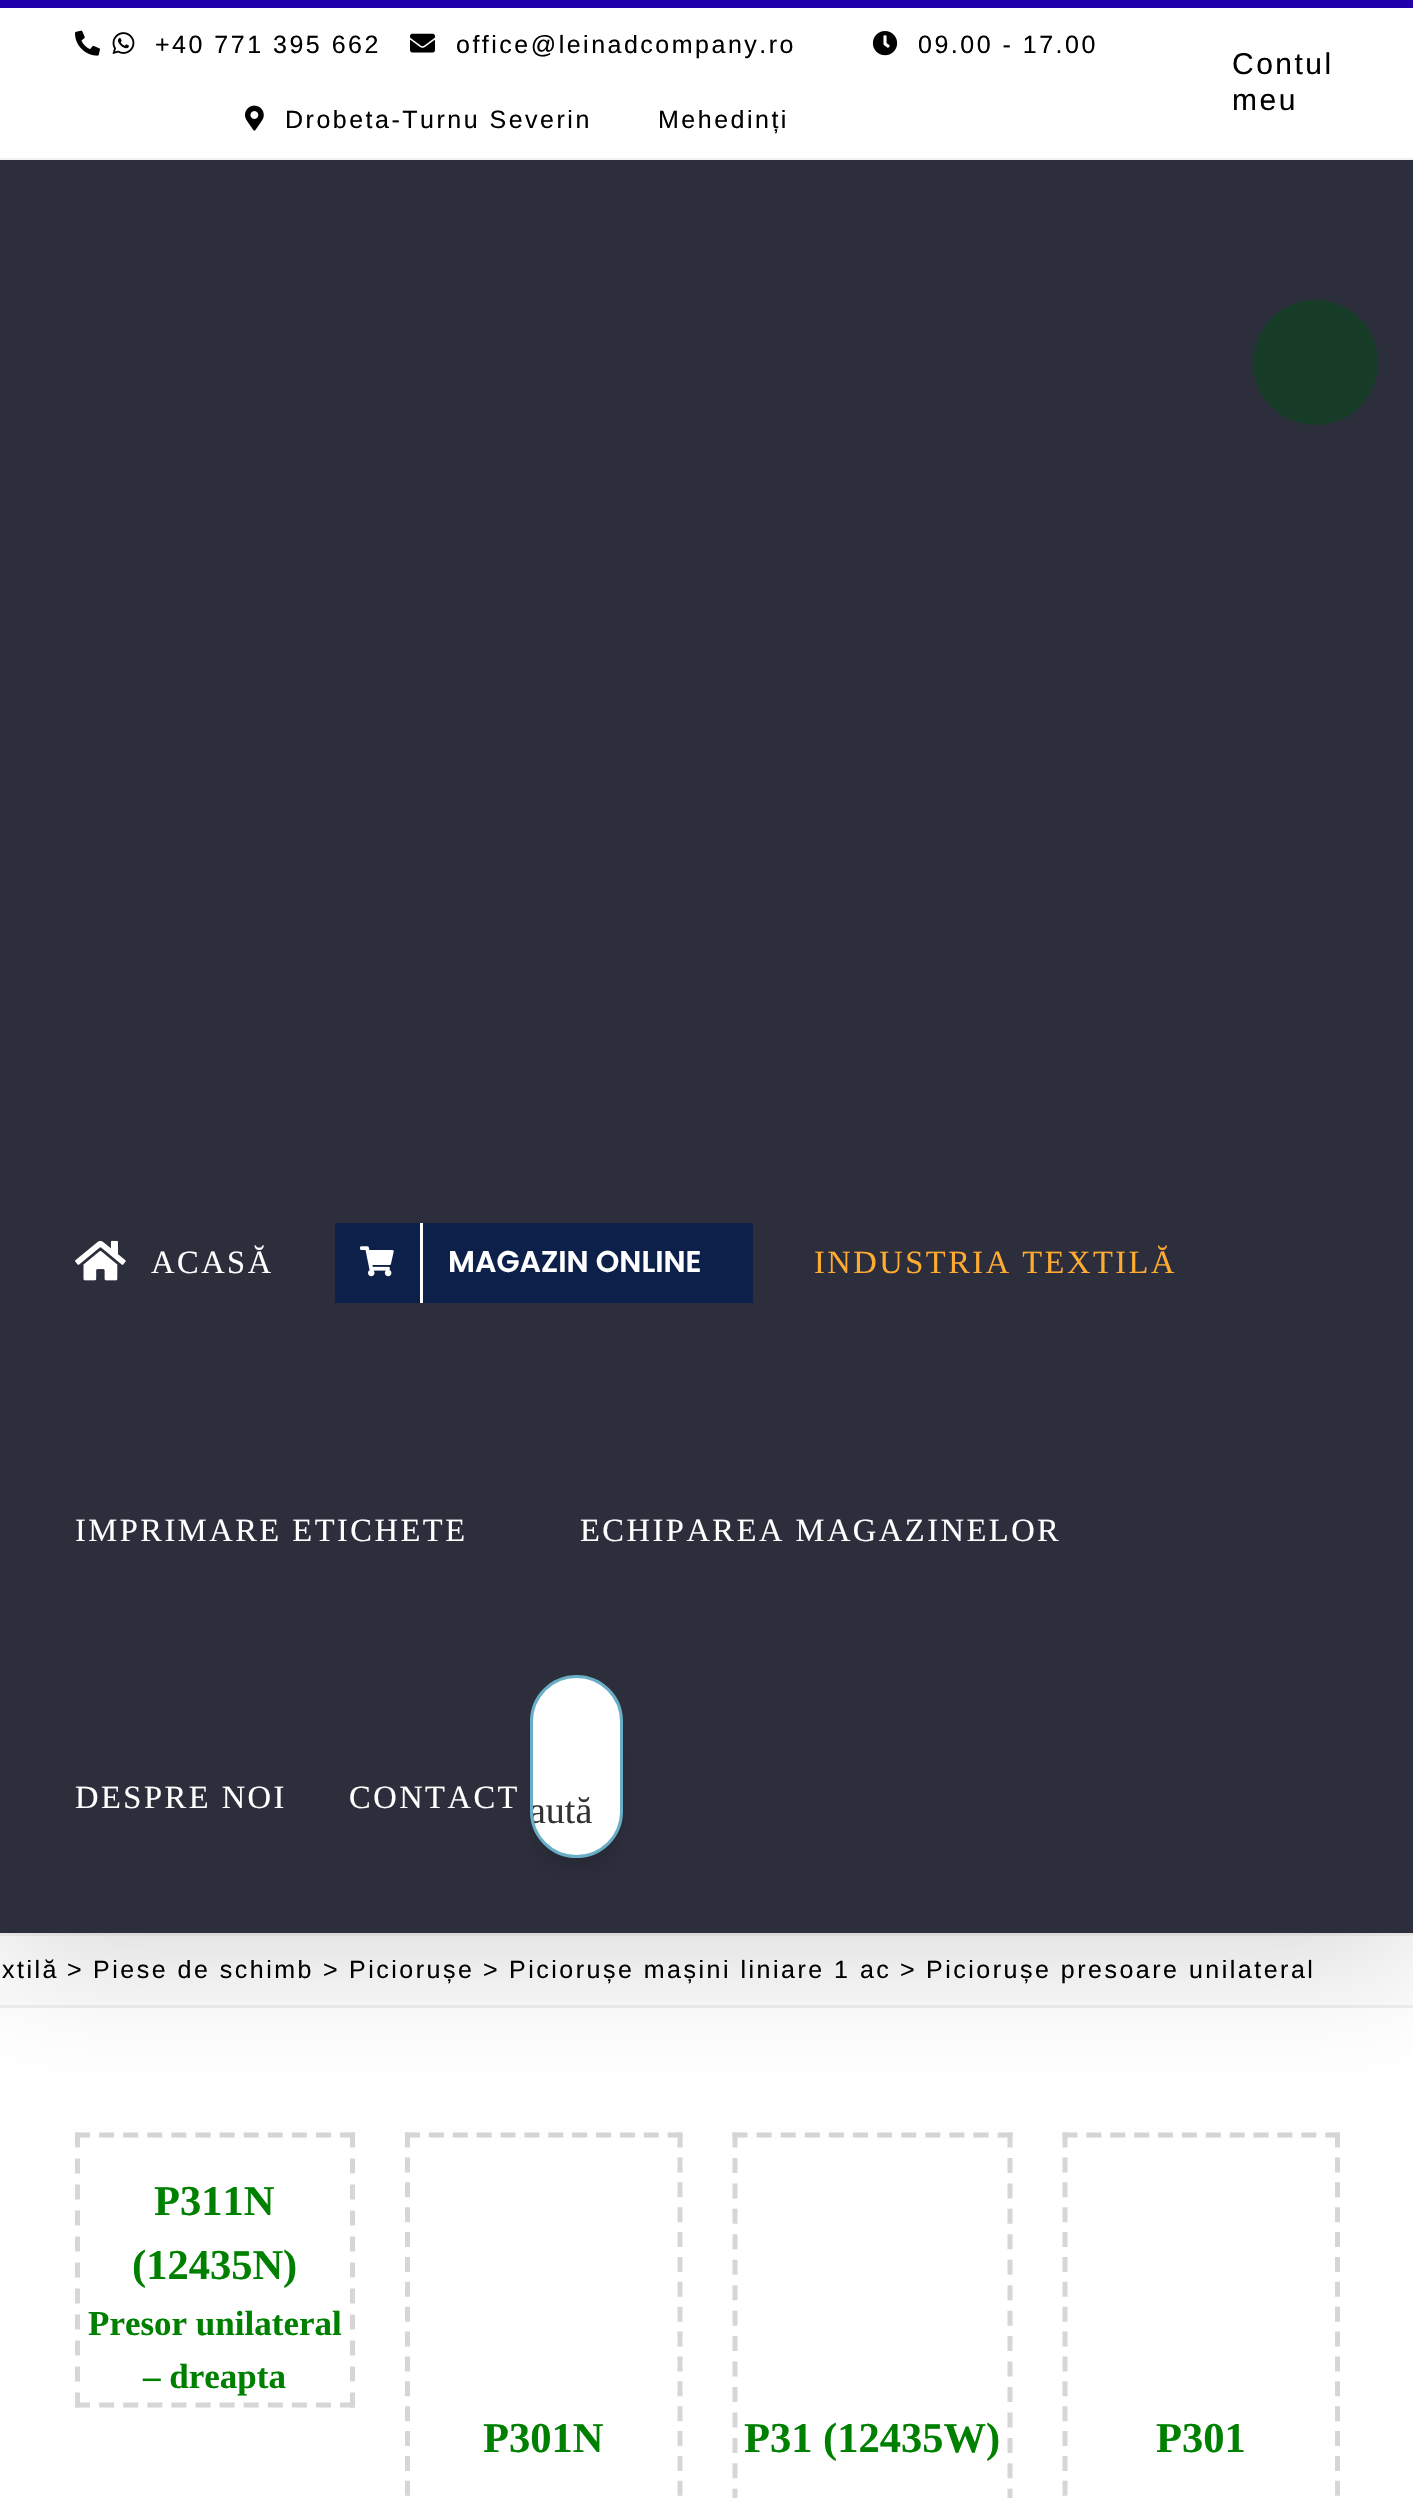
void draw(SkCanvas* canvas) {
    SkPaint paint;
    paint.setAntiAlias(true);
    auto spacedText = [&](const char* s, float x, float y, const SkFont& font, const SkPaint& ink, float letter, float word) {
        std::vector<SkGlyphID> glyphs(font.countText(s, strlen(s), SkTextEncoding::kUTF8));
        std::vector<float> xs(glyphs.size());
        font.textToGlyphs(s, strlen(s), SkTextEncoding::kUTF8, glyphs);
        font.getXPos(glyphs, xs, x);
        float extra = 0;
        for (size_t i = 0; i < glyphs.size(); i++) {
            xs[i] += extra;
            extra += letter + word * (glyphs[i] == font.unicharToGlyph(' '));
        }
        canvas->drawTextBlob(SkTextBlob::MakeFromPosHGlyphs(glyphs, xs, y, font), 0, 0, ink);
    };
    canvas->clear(0xFFFCFCFC);
    paint.setColor(0xFFEFEFEF);
    canvas->drawRect(SkRect::MakeXYWH(0, 1933, 1413, 3), paint);
    canvas->drawRect(SkRect::MakeXYWH(0, 2005, 1413, 3), paint);
    paint.setColor(0xFFFFFFFF);
    canvas->drawRect(SkRect::MakeXYWH(0, 2008, 1413, 490), paint);
    paint.setStyle(SkPaint::kStroke_Style);
    paint.setStrokeWidth(5);
    paint.setColor(0xFFD6D6D6);
    paint.setPathEffect(SkDashPathEffect::Make({{15, 9.1f}}, 0));
    canvas->drawPath(SkPathBuilder().moveTo(75, 2135).lineTo(355, 2135).detach(), paint);
    paint.setPathEffect(nullptr);
    paint.setPathEffect(SkDashPathEffect::Make({{15, 11}}, 0));
    canvas->drawPath(SkPathBuilder().moveTo(352.5f, 2132.5f).lineTo(352.5f, 2407.5f).detach(), paint);
    paint.setPathEffect(nullptr);
    paint.setPathEffect(SkDashPathEffect::Make({{15, 9.1f}}, 0));
    canvas->drawPath(SkPathBuilder().moveTo(75, 2405).lineTo(355, 2405).detach(), paint);
    paint.setPathEffect(nullptr);
    paint.setPathEffect(SkDashPathEffect::Make({{15, 11}}, 0));
    canvas->drawPath(SkPathBuilder().moveTo(77.5f, 2132.5f).lineTo(77.5f, 2407.5f).detach(), paint);
    paint.setPathEffect(nullptr);
    paint.setPathEffect(SkDashPathEffect::Make({{15, 8.88f}}, 0));
    canvas->drawPath(SkPathBuilder().moveTo(405, 2135).lineTo(682.5f, 2135).detach(), paint);
    paint.setPathEffect(nullptr);
    paint.setPathEffect(SkDashPathEffect::Make({{15, 9.88f}}, 0));
    canvas->drawPath(SkPathBuilder().moveTo(680, 2132.5f).lineTo(680, 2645).detach(), paint);
    paint.setPathEffect(nullptr);
    paint.setPathEffect(SkDashPathEffect::Make({{15, 9.88f}}, 0));
    canvas->drawPath(SkPathBuilder().moveTo(407.5f, 2132.5f).lineTo(407.5f, 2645).detach(), paint);
    paint.setPathEffect(nullptr);
    paint.setPathEffect(SkDashPathEffect::Make({{15, 9.1f}}, 0));
    canvas->drawPath(SkPathBuilder().moveTo(732.5f, 2135).lineTo(1012.5f, 2135).detach(), paint);
    paint.setPathEffect(nullptr);
    paint.setPathEffect(SkDashPathEffect::Make({{15, 10.45f}}, 0));
    canvas->drawPath(SkPathBuilder().moveTo(1010, 2132.5f).lineTo(1010, 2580).detach(), paint);
    paint.setPathEffect(nullptr);
    paint.setPathEffect(SkDashPathEffect::Make({{15, 10.45f}}, 0));
    canvas->drawPath(SkPathBuilder().moveTo(735, 2132.5f).lineTo(735, 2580).detach(), paint);
    paint.setPathEffect(nullptr);
    paint.setPathEffect(SkDashPathEffect::Make({{15, 8.88f}}, 0));
    canvas->drawPath(SkPathBuilder().moveTo(1062.5f, 2135).lineTo(1340, 2135).detach(), paint);
    paint.setPathEffect(nullptr);
    paint.setPathEffect(SkDashPathEffect::Make({{15, 9.88f}}, 0));
    canvas->drawPath(SkPathBuilder().moveTo(1337.5f, 2132.5f).lineTo(1337.5f, 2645).detach(), paint);
    paint.setPathEffect(nullptr);
    paint.setPathEffect(SkDashPathEffect::Make({{15, 9.88f}}, 0));
    canvas->drawPath(SkPathBuilder().moveTo(1065, 2132.5f).lineTo(1065, 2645).detach(), paint);
    paint.setPathEffect(nullptr);
    paint.setStyle(SkPaint::kFill_Style);
    paint.setColor(0x24000000);
    paint.setMaskFilter(SkMaskFilter::MakeBlur(kNormal_SkBlurStyle, 62.5f));
    canvas->drawRect(SkRect::MakeXYWH(5, 30, 1405, 1923), paint);
    paint.setMaskFilter(nullptr);
    paint.setColor(0xFFFFFFFF);
    canvas->drawRect(SkRect::MakeXYWH(0, 8, 1413, 150), paint);
    paint.setColor(0xFFF1F1F2);
    canvas->drawRect(SkRect::MakeXYWH(0, 158, 1413, 2), paint);
    paint.setColor(0xFF1F00AA);
    canvas->drawRect(SkRect::MakeXYWH(0, 0, 1413, 8), paint);
    canvas->drawImageRect(SkImages::DeferredFromEncodedData(SkData::MakeFromFileName("img1.png")), SkRect::MakeXYWH(75, 30, 25, 26), SkSamplingOptions());
    canvas->drawImageRect(SkImages::DeferredFromEncodedData(SkData::MakeFromFileName("img2.png")), SkRect::MakeXYWH(112, 32, 23, 22), SkSamplingOptions());
    SkFont font1(fontMgr->matchFamilyStyle("Liberation Sans", SkFontStyle::Normal()), 25);
    font1.setSubpixel(true);
    paint.setColor(0xFF000000);
    spacedText("+40 771 395 662", 155, 53, font1, paint, 2.5f, 0);
    canvas->drawImageRect(SkImages::DeferredFromEncodedData(SkData::MakeFromFileName("img3.png")), SkRect::MakeXYWH(410, 33, 25, 20), SkSamplingOptions());
    spacedText("office@leinadcompany.ro", 456, 53, font1, paint, 2.5f, 0);
    canvas->drawImageRect(SkImages::DeferredFromEncodedData(SkData::MakeFromFileName("img4.png")), SkRect::MakeXYWH(872, 31, 26, 25), SkSamplingOptions());
    spacedText("09.00 - 17.00", 918, 53, font1, paint, 2.5f, 0);
    canvas->drawImageRect(SkImages::DeferredFromEncodedData(SkData::MakeFromFileName("img5.png")), SkRect::MakeXYWH(245, 105, 19, 26), SkSamplingOptions());
    spacedText("Drobeta-Turnu Severin", 285, 128, font1, paint, 2.5f, 0);
    spacedText("Mehedinți", 658, 128, font1, paint, 2.5f, 0);
    SkFont font2(fontMgr->matchFamilyStyle("Liberation Sans", SkFontStyle::Normal()), 30);
    font2.setSubpixel(true);
    spacedText("Contul", 1232, 74, font2, paint, 2.5f, 0);
    spacedText("meu", 1232, 110, font2, paint, 2.5f, 0);
    paint.setColor(0xFF2C2E3C);
    canvas->drawRect(SkRect::MakeXYWH(0, 160, 1413, 1773), paint);
    canvas->drawImageRect(SkImages::DeferredFromEncodedData(SkData::MakeFromFileName("img6.png")), SkRect::MakeXYWH(75, 1240, 51, 41), SkSamplingOptions());
    SkFont font3(fontMgr->matchFamilyStyle("Liberation Serif", SkFontStyle::Normal()), 32.5f);
    font3.setSubpixel(true);
    paint.setColor(0xFFFFFFFF);
    spacedText("ACASĂ", 151, 1273, font3, paint, 2.5f, 0);
    paint.setColor(0xFF0D2049);
    canvas->drawRect(SkRect::MakeXYWH(335, 1223, 418, 80), paint);
    paint.setColor(0xFFFFFFFF);
    canvas->drawRect(SkRect::MakeXYWH(420, 1223, 3, 80), paint);
    canvas->drawImageRect(SkImages::DeferredFromEncodedData(SkData::MakeFromFileName("img7.png")), SkRect::MakeXYWH(360, 1246, 34, 31), SkSamplingOptions());
    SkFont font4(fontMgr->matchFamilyStyle("Poppins", SkFontStyle(600, SkFontStyle::kNormal_Width, SkFontStyle::kUpright_Slant)), 30);
    font4.setSubpixel(true);
    canvas->drawString("MAGAZIN ONLINE", 448, 1272, font4, paint);
    paint.setColor(0xFFFFAB32);
    spacedText("INDUSTRIA TEXTILĂ", 814, 1273, font3, paint, 2.5f, 0);
    paint.setColor(0xFFFFFFFF);
    spacedText("IMPRIMARE ETICHETE", 75, 1541, font3, paint, 2.5f, 0);
    spacedText("ECHIPAREA MAGAZINELOR", 580, 1541, font3, paint, 2.5f, 0);
    spacedText("DESPRE NOI", 75, 1808, font3, paint, 2.5f, 0);
    spacedText("CONTACT", 349, 1808, font3, paint, 2.5f, 0);
    paint.setColor(0xFF000000);
    paint.setMaskFilter(SkMaskFilter::MakeBlur(kNormal_SkBlurStyle, 22.5f));
    canvas->drawRoundRect(SkRect::MakeXYWH(563, 1733, 27, 117), 13.5f, 13.5f, paint);
    paint.setMaskFilter(nullptr);
    paint.setColor(0xFFFFFFFF);
    canvas->drawRoundRect(SkRect::MakeXYWH(531.5f, 1676.5f, 90, 180), 45, 45, paint);
    paint.setStyle(SkPaint::kStroke_Style);
    paint.setStrokeWidth(3);
    paint.setColor(0xFF68AEC7);
    canvas->drawRoundRect(SkRect::MakeXYWH(531.5f, 1676.5f, 90, 180), 45, 45, paint);
    paint.setStyle(SkPaint::kFill_Style);
    paint.setColor(0xA3FFFFFF);
    canvas->drawPath(SkPathBuilder().moveTo(574, 1770).cubicTo(564, 1770, 555, 1773, 548, 1779).cubicTo(565, 1764, 591, 1765, 607, 1781).cubicTo(623, 1797, 624, 1823, 609, 1840).cubicTo(630, 1812, 610, 1770, 574, 1770).close().detach(), paint);
    canvas->save();
    canvas->clipPath(SkPathBuilder().moveTo(576.5f, 1678).cubicTo(600.5f, 1678, 620, 1697.5f, 620, 1721.5f).lineTo(620, 1811.5f).cubicTo(620, 1835.5f, 600.5f, 1855, 576.5f, 1855).cubicTo(552.5f, 1855, 533, 1835.5f, 533, 1811.5f).lineTo(533, 1721.5f).cubicTo(533, 1697.5f, 552.5f, 1678, 576.5f, 1678).close().detach(), true);
    SkFont font5(fontMgr->matchFamilyStyle("Liberation Serif", SkFontStyle::Normal()), 38);
    font5.setSubpixel(true);
    paint.setColor(0xFF333333);
    canvas->drawString("aută", 529, 1823, font5, paint);
    canvas->restore();
    paint.setColor(0xFF163C27);
    canvas->drawCircle(1315.5f, 362.5f, 62.5f, paint);
    paint.setColor(0xFF000000);
    spacedText("xtilă", 2, 1978, font1, paint, 2.5f, 0);
    spacedText(">", 67, 1978, font1, paint, 2.5f, 0);
    spacedText("Piese de schimb", 93, 1978, font1, paint, 2.5f, 0);
    spacedText(">", 323, 1978, font1, paint, 2.5f, 0);
    spacedText("Piciorușe", 349, 1978, font1, paint, 2.5f, 0);
    spacedText(">", 483, 1978, font1, paint, 2.5f, 0);
    spacedText("Piciorușe mașini liniare 1 ac", 509, 1978, font1, paint, 2.5f, 0);
    spacedText(">", 900, 1978, font1, paint, 2.5f, 0);
    spacedText("Piciorușe presoare unilateral", 926, 1978, font1, paint, 2.5f, 0);
    SkFont font6(fontMgr->matchFamilyStyle("Liberation Serif", SkFontStyle::Bold()), 42.5f);
    font6.setSubpixel(true);
    paint.setColor(0xFF008000);
    canvas->drawString("P311N", 154, 2215, font6, paint);
    canvas->drawString("(12435N)", 132, 2279, font6, paint);
    SkFont font7(fontMgr->matchFamilyStyle("Liberation Serif", SkFontStyle::Bold()), 35);
    font7.setSubpixel(true);
    canvas->drawString("Presor unilateral", 88, 2335, font7, paint);
    canvas->drawString("– dreapta", 143, 2388, font7, paint);
    canvas->drawString("P301N", 483, 2452, font6, paint);
    canvas->drawString("P31 (12435W)", 744, 2452, font6, paint);
    canvas->drawString("P301", 1156, 2452, font6, paint);
}
